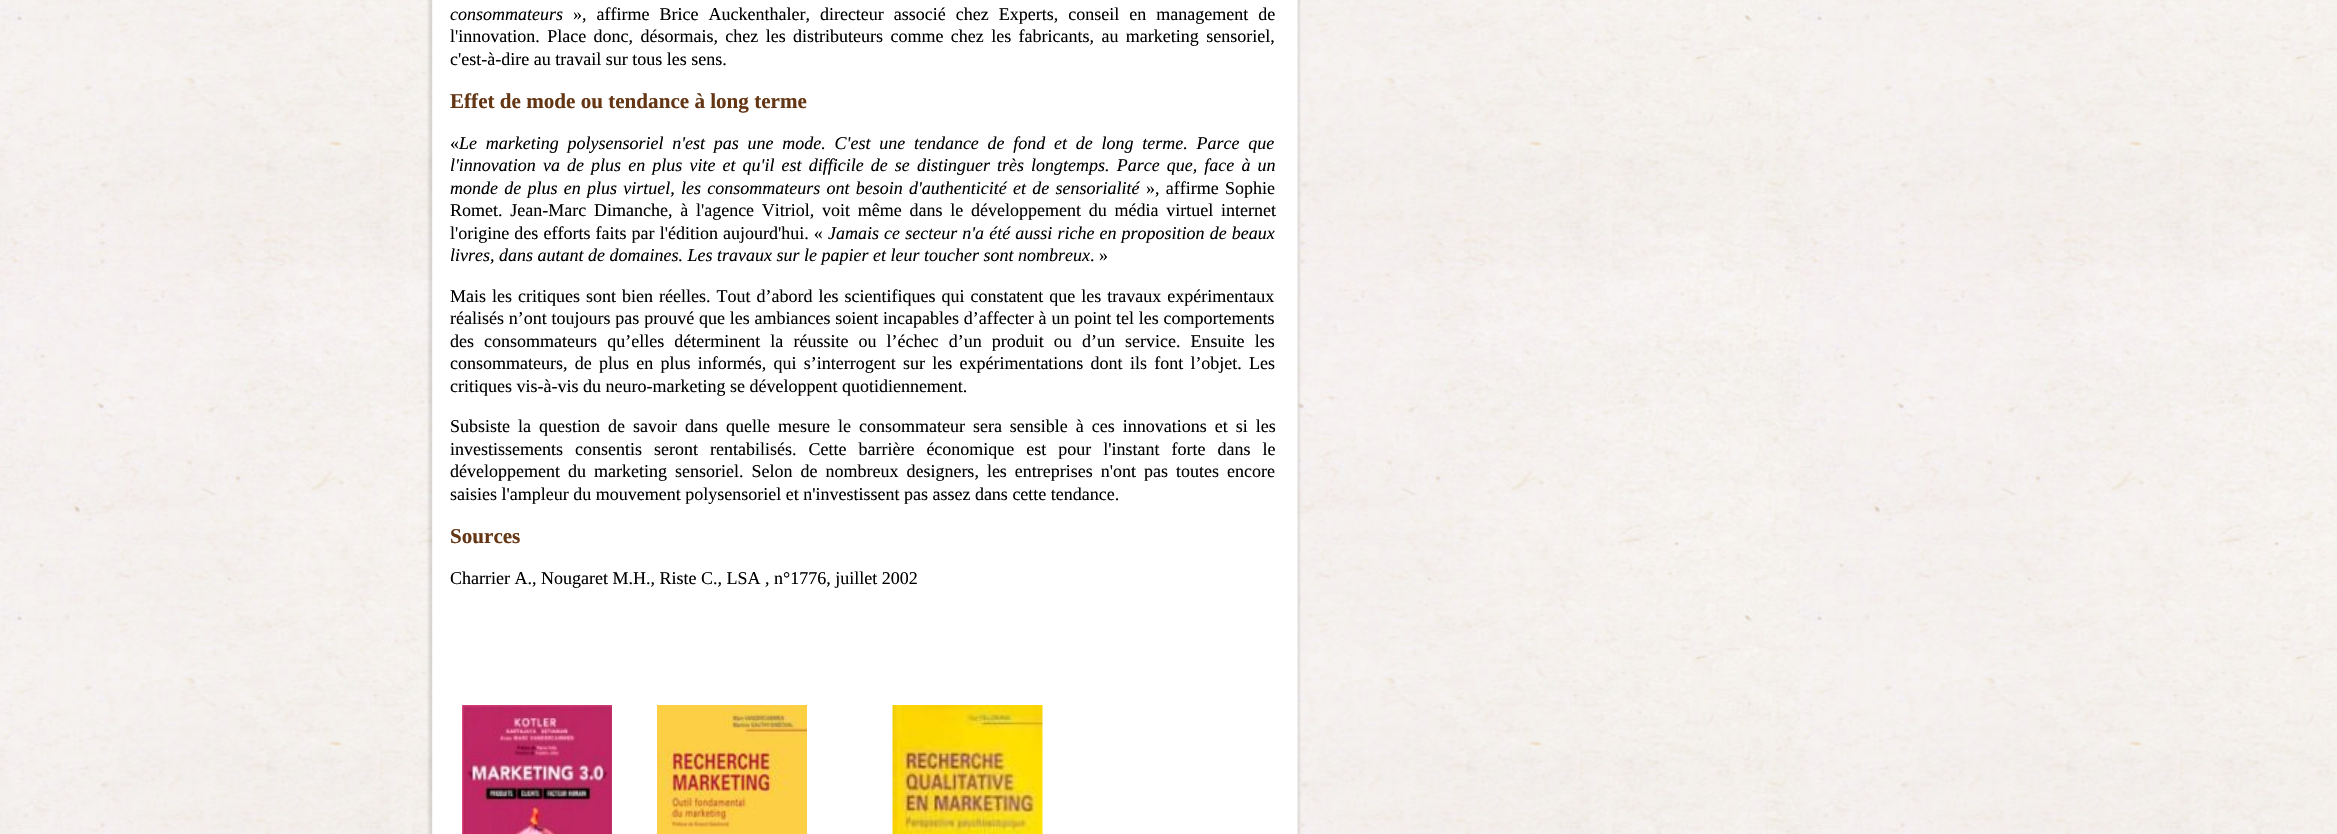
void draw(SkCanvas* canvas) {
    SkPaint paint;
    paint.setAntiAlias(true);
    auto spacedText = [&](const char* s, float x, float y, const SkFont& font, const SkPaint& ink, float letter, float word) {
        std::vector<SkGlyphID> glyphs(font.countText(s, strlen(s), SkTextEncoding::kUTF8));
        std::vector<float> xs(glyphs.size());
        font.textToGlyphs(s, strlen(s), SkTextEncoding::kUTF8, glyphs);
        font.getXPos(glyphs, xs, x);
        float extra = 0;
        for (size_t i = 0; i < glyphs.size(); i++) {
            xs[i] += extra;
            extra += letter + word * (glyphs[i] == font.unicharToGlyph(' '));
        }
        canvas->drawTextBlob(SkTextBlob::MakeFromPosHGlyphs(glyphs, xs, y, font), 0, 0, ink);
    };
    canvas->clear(0xFFFFFFFF);
    canvas->drawImageRect(SkImages::DeferredFromEncodedData(SkData::MakeFromFileName("img1.png")), SkRect::MakeXYWH(0, 0, 2337, 834), SkSamplingOptions());
    canvas->drawImageRect(SkImages::DeferredFromEncodedData(SkData::MakeFromFileName("img2.png")), SkRect::MakeXYWH(427, 0, 874, 834), SkSamplingOptions());
    SkFont font1(fontMgr->matchFamilyStyle("Liberation Serif", SkFontStyle::Italic()), 18);
    font1.setSubpixel(true);
    paint.setColor(0xFF000000);
    canvas->drawString("consommateurs", 450, 20, font1, paint);
    SkFont font2(fontMgr->matchFamilyStyle("Liberation Serif", SkFontStyle::Normal()), 18);
    font2.setSubpixel(true);
    spacedText("», affirme Brice Auckenthaler, directeur associé chez Experts, conseil en management de", 573, 20, font2, paint, 0, 5.5f);
    spacedText("l'innovation. Place donc, désormais, chez les distributeurs comme chez les fabricants, au marketing sensoriel,", 450, 42, font2, paint, 0, 2.9f);
    canvas->drawString("c'est-à-dire au travail sur tous les sens.", 450, 65, font2, paint);
    SkFont font3(fontMgr->matchFamilyStyle("Liberation Serif", SkFontStyle::Bold()), 21.1f);
    font3.setSubpixel(true);
    paint.setColor(0xFF653614);
    canvas->drawString("Effet de mode ou tendance à long terme", 450, 108, font3, paint);
    paint.setColor(0xFF000000);
    canvas->drawString("«", 450, 149, font2, paint);
    spacedText("Le marketing polysensoriel n'est pas une mode. C'est une tendance de fond et de long terme. Parce que", 459, 149, font1, paint, 0, 4.25f);
    spacedText("l'innovation va de plus en plus vite et qu'il est difficile de se distinguer très longtemps. Parce que, face à un", 450, 171, font1, paint, 0, 2.6f);
    spacedText("monde de plus en plus virtuel, les consommateurs ont besoin d'authenticité et de sensorialité", 450, 194, font1, paint, 0, 1.75f);
    spacedText("», affirme Sophie", 1146, 194, font2, paint, 0, 1.75f);
    spacedText("Romet. Jean-Marc Dimanche, à l'agence Vitriol, voit même dans le développement du média virtuel internet", 450, 216, font2, paint, 0, 3.25f);
    spacedText("l'origine des efforts faits par l'édition aujourd'hui. «", 450, 239, font2, paint, 0, 0.6f);
    spacedText("Jamais ce secteur n'a été aussi riche en proposition de beaux", 828, 239, font1, paint, 0, 0.6f);
    canvas->drawString("livres, dans autant de domaines. Les travaux sur le papier et leur toucher sont nombreux", 450, 261, font1, paint);
    canvas->drawString(". »", 1090, 261, font2, paint);
    spacedText("Mais les critiques sont bien réelles. Tout d’abord les scientifiques qui constatent que les travaux expérimentaux", 450, 302, font2, paint, 0, 1.5f);
    spacedText("réalisés n’ont toujours pas prouvé que les ambiances soient incapables d’affecter à un point tel les comportements", 450, 324, font2, paint, 0, 0.3f);
    spacedText("des consommateurs qu’elles déterminent la réussite ou l’échec d’un produit ou d’un service. Ensuite les", 450, 347, font2, paint, 0, 5.6f);
    spacedText("consommateurs, de plus en plus informés, qui s’interrogent sur les expérimentations dont ils font l’objet. Les", 450, 369, font2, paint, 0, 2.75f);
    canvas->drawString("critiques vis-à-vis du neuro-marketing se développent quotidiennement.", 450, 392, font2, paint);
    spacedText("Subsiste la question de savoir dans quelle mesure le consommateur sera sensible à ces innovations et si les", 450, 432, font2, paint, 0, 3.5f);
    spacedText("investissements consentis seront rentabilisés. Cette barrière économique est pour l'instant forte dans le", 450, 455, font2, paint, 0, 7.5f);
    spacedText("développement du marketing sensoriel. Selon de nombreux designers, les entreprises n'ont pas toutes encore", 450, 477, font2, paint, 0, 3.5f);
    canvas->drawString("saisies l'ampleur du mouvement polysensoriel et n'investissent pas assez dans cette tendance.", 450, 500, font2, paint);
    paint.setColor(0xFF653614);
    canvas->drawString("Sources", 450, 543, font3, paint);
    paint.setColor(0xFF000000);
    canvas->drawString("Charrier A., Nougaret M.H., Riste C., LSA , n°1776, juillet 2002", 450, 584, font2, paint);
    canvas->drawImageRect(SkImages::DeferredFromEncodedData(SkData::MakeFromFileName("img3.png")), SkRect::MakeXYWH(462, 705, 150, 129), SkSamplingOptions());
    canvas->drawImageRect(SkImages::DeferredFromEncodedData(SkData::MakeFromFileName("img4.png")), SkRect::MakeXYWH(657, 705, 150, 129), SkSamplingOptions());
    canvas->drawImageRect(SkImages::DeferredFromEncodedData(SkData::MakeFromFileName("img5.png")), SkRect::MakeXYWH(892, 705, 151, 129), SkSamplingOptions());
}
